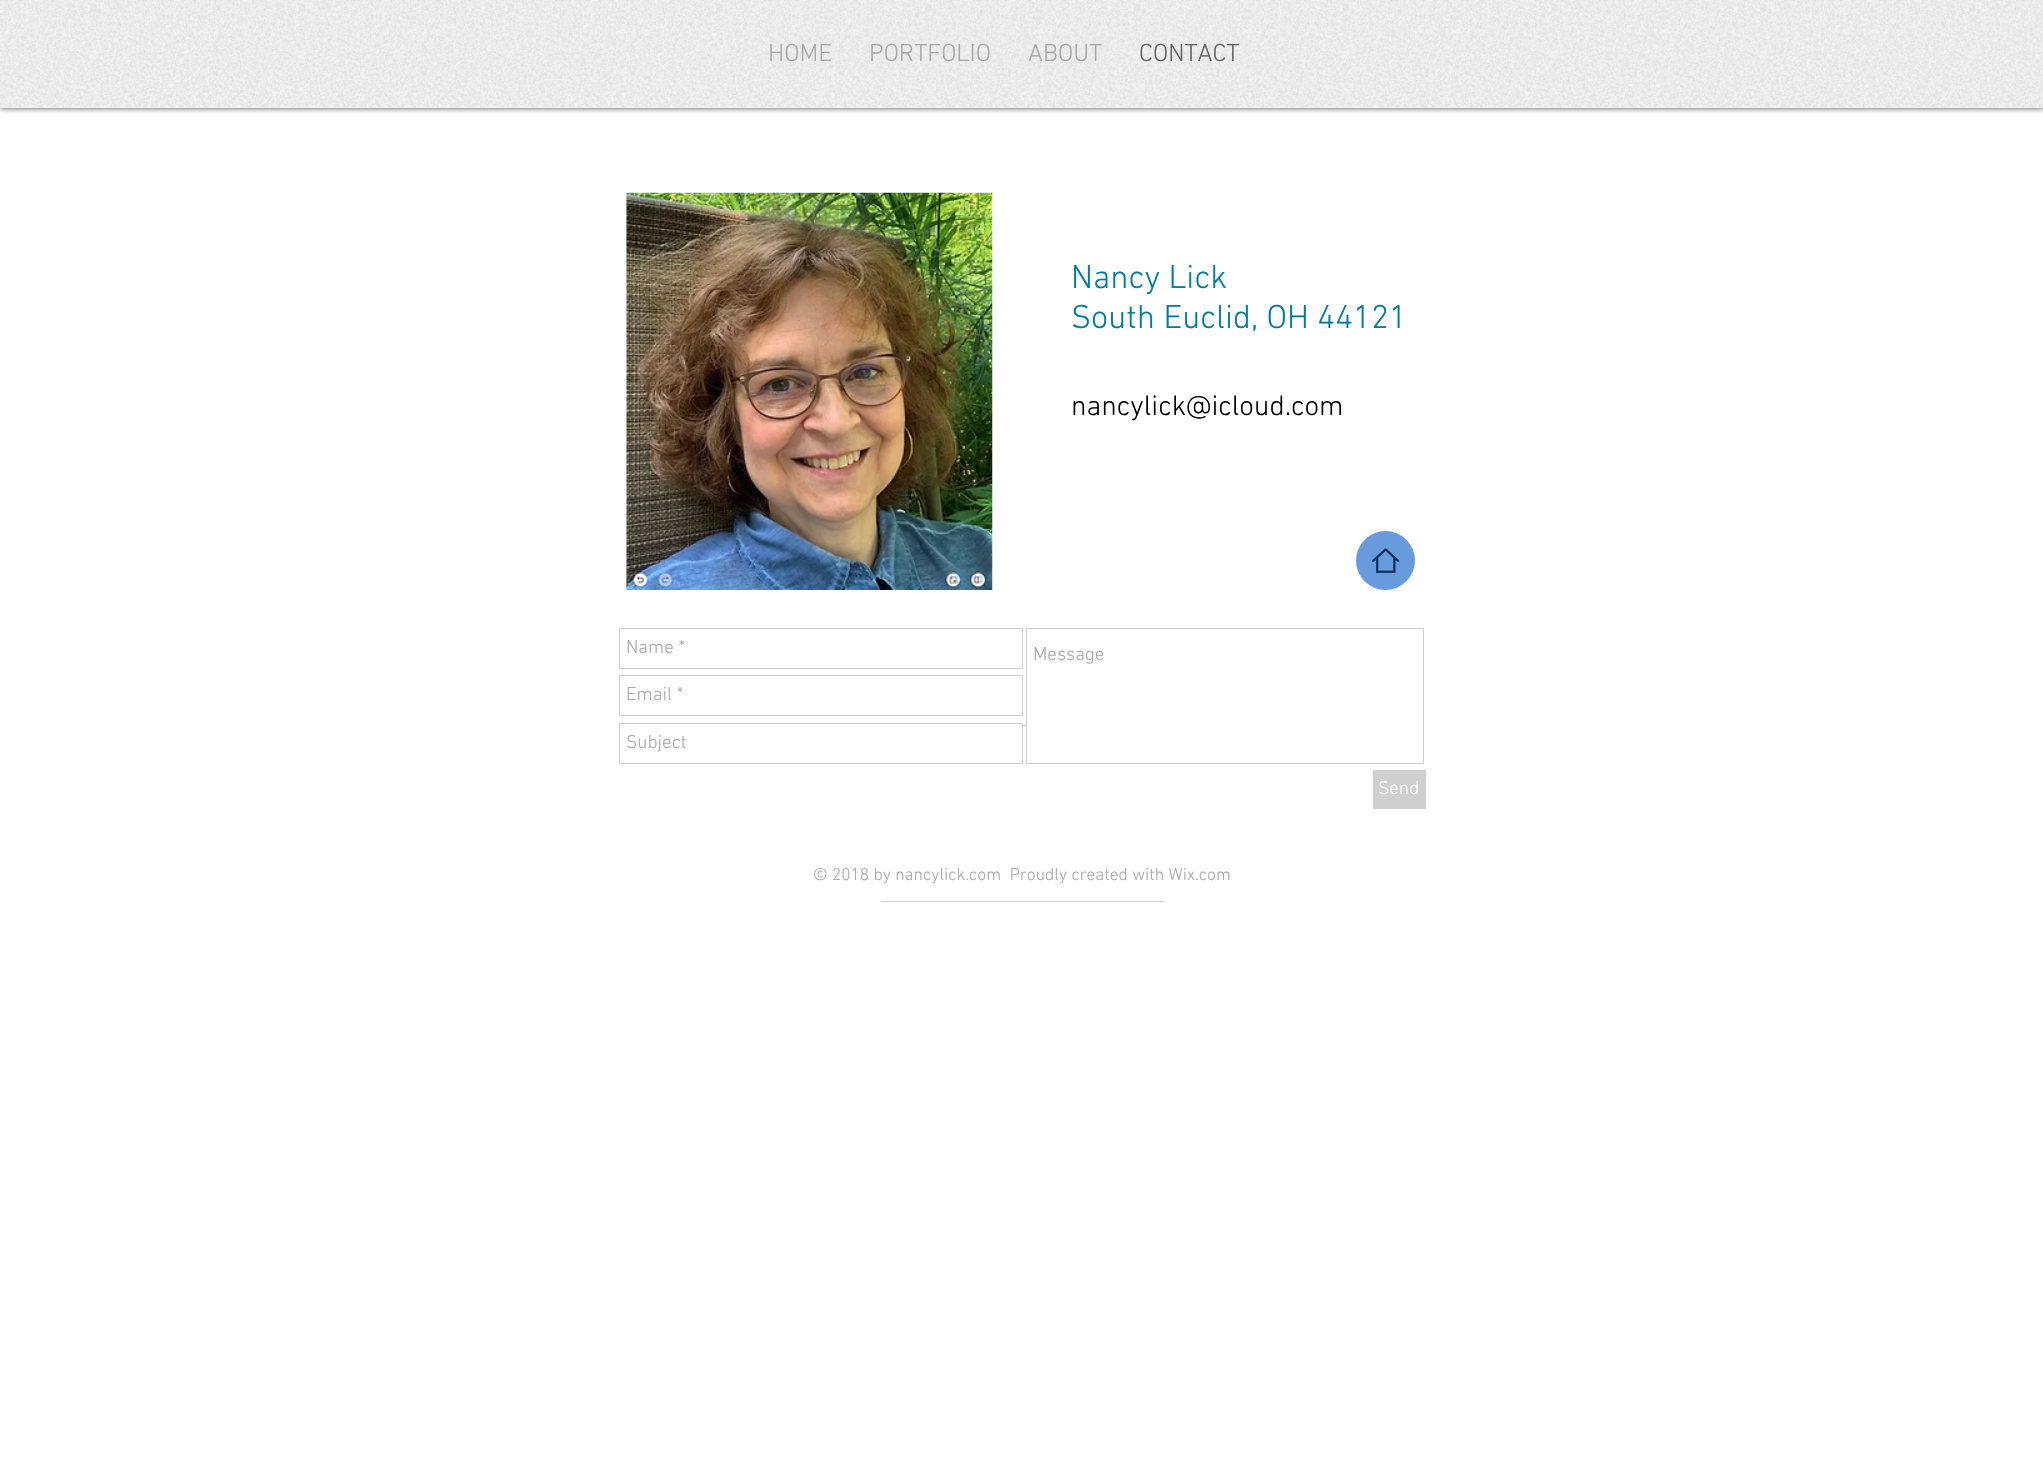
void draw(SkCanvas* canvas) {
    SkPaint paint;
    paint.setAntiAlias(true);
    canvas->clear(0xFFFFFFFF);
    paint.setColor(0xB3000000);
    paint.setMaskFilter(SkMaskFilter::MakeBlur(kNormal_SkBlurStyle, 3));
    canvas->drawRect(SkRect::MakeXYWH(0, 0, 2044, 108), paint);
    paint.setMaskFilter(nullptr);
    paint.setColor(0xFFF2F2F2);
    canvas->drawRect(SkRect::MakeXYWH(0, 0, 2043, 108), paint);
    canvas->drawImageRect(SkImages::DeferredFromEncodedData(SkData::MakeFromFileName("img1.png")), SkRect::MakeXYWH(0, 0, 2043, 108), SkSamplingOptions());
    SkFont font1(fontMgr->matchFamilyStyle("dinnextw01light", SkFontStyle(300, SkFontStyle::kNormal_Width, SkFontStyle::kUpright_Slant)), 25);
    font1.setSubpixel(true);
    paint.setColor(0xFFA8A8A8);
    canvas->drawString("HOME", 768, 61, font1, paint);
    canvas->drawString("PORTFOLIO", 869, 61, font1, paint);
    canvas->drawString("ABOUT", 1028, 61, font1, paint);
    paint.setColor(0xFF606060);
    canvas->drawString("CONTACT", 1139, 61, font1, paint);
    canvas->drawImageRect(SkImages::DeferredFromEncodedData(SkData::MakeFromFileName("img2.png")), SkRect::MakeXYWH(626, 192, 367, 398), SkSamplingOptions());
    SkFont font2(fontMgr->matchFamilyStyle("dinnextw01light", SkFontStyle(300, SkFontStyle::kNormal_Width, SkFontStyle::kUpright_Slant)), 33.75f);
    font2.setSubpixel(true);
    paint.setColor(0xFF007B9A);
    canvas->drawString("Nancy Lick", 1071, 288, font2, paint);
    canvas->drawString("South Euclid, OH 44121", 1071, 328, font2, paint);
    SkFont font3(fontMgr->matchFamilyStyle("dinnextw01light", SkFontStyle(300, SkFontStyle::kNormal_Width, SkFontStyle::kUpright_Slant)), 28.75f);
    font3.setSubpixel(true);
    paint.setColor(0xFF000000);
    canvas->drawString("nancylick@icloud.com", 1071, 415, font3, paint);
    paint.setColor(0xFF689ADE);
    canvas->drawCircle(1385.5f, 560.5f, 29.5f, paint);
    canvas->drawImageRect(SkImages::DeferredFromEncodedData(SkData::MakeFromFileName("img3.png")), SkRect::MakeXYWH(1372, 548, 28, 25), SkSamplingOptions());
    paint.setStyle(SkPaint::kStroke_Style);
    paint.setStrokeWidth(1);
    paint.setColor(0xFFCFCFCF);
    canvas->drawRect(SkRect::MakeXYWH(619.5f, 628.5f, 403, 40), paint);
    SkFont font4(fontMgr->matchFamilyStyle("dinnextw01light", SkFontStyle(300, SkFontStyle::kNormal_Width, SkFontStyle::kUpright_Slant)), 19);
    font4.setSubpixel(true);
    paint.setStyle(SkPaint::kFill_Style);
    paint.setColor(0xFFA8A8A8);
    canvas->drawString("Name *", 626, 653, font4, paint);
    paint.setStyle(SkPaint::kStroke_Style);
    paint.setColor(0xFFCFCFCF);
    canvas->drawRect(SkRect::MakeXYWH(1026.5f, 628.5f, 397, 135), paint);
    paint.setStyle(SkPaint::kFill_Style);
    paint.setColor(0xFFA8A8A8);
    canvas->drawString("Message", 1033, 660, font4, paint);
    paint.setStyle(SkPaint::kStroke_Style);
    paint.setColor(0xFFCFCFCF);
    canvas->drawRect(SkRect::MakeXYWH(619.5f, 675.5f, 403, 40), paint);
    paint.setStyle(SkPaint::kFill_Style);
    paint.setColor(0xFFA8A8A8);
    canvas->drawString("Email *", 626, 700, font4, paint);
    paint.setStyle(SkPaint::kStroke_Style);
    paint.setColor(0xFFCFCFCF);
    canvas->drawRect(SkRect::MakeXYWH(619.5f, 723.5f, 403, 40), paint);
    paint.setStyle(SkPaint::kFill_Style);
    paint.setColor(0xFFA8A8A8);
    canvas->drawString("Subject", 626, 748, font4, paint);
    paint.setColor(0xFFCFCFCF);
    canvas->drawRect(SkRect::MakeXYWH(1373, 770, 53, 39), paint);
    paint.setColor(0xFFFFFFFF);
    canvas->drawString("Send", 1378, 794, font4, paint);
    paint.setColor(0xFFCFCFCF);
    canvas->drawRect(SkRect::MakeXYWH(1023, 725, 3, 1), paint);
    SkFont font5(fontMgr->matchFamilyStyle("dinnextw01light", SkFontStyle(300, SkFontStyle::kNormal_Width, SkFontStyle::kUpright_Slant)), 17.5f);
    font5.setSubpixel(true);
    paint.setColor(0xFFA8A8A8);
    canvas->drawString("© 2018 by nancylick.com  Proudly created with Wix.com", 813, 880, font5, paint);
    paint.setColor(0xFFCFCFCF);
    canvas->drawRect(SkRect::MakeXYWH(881, 901, 284, 1), paint);
}
